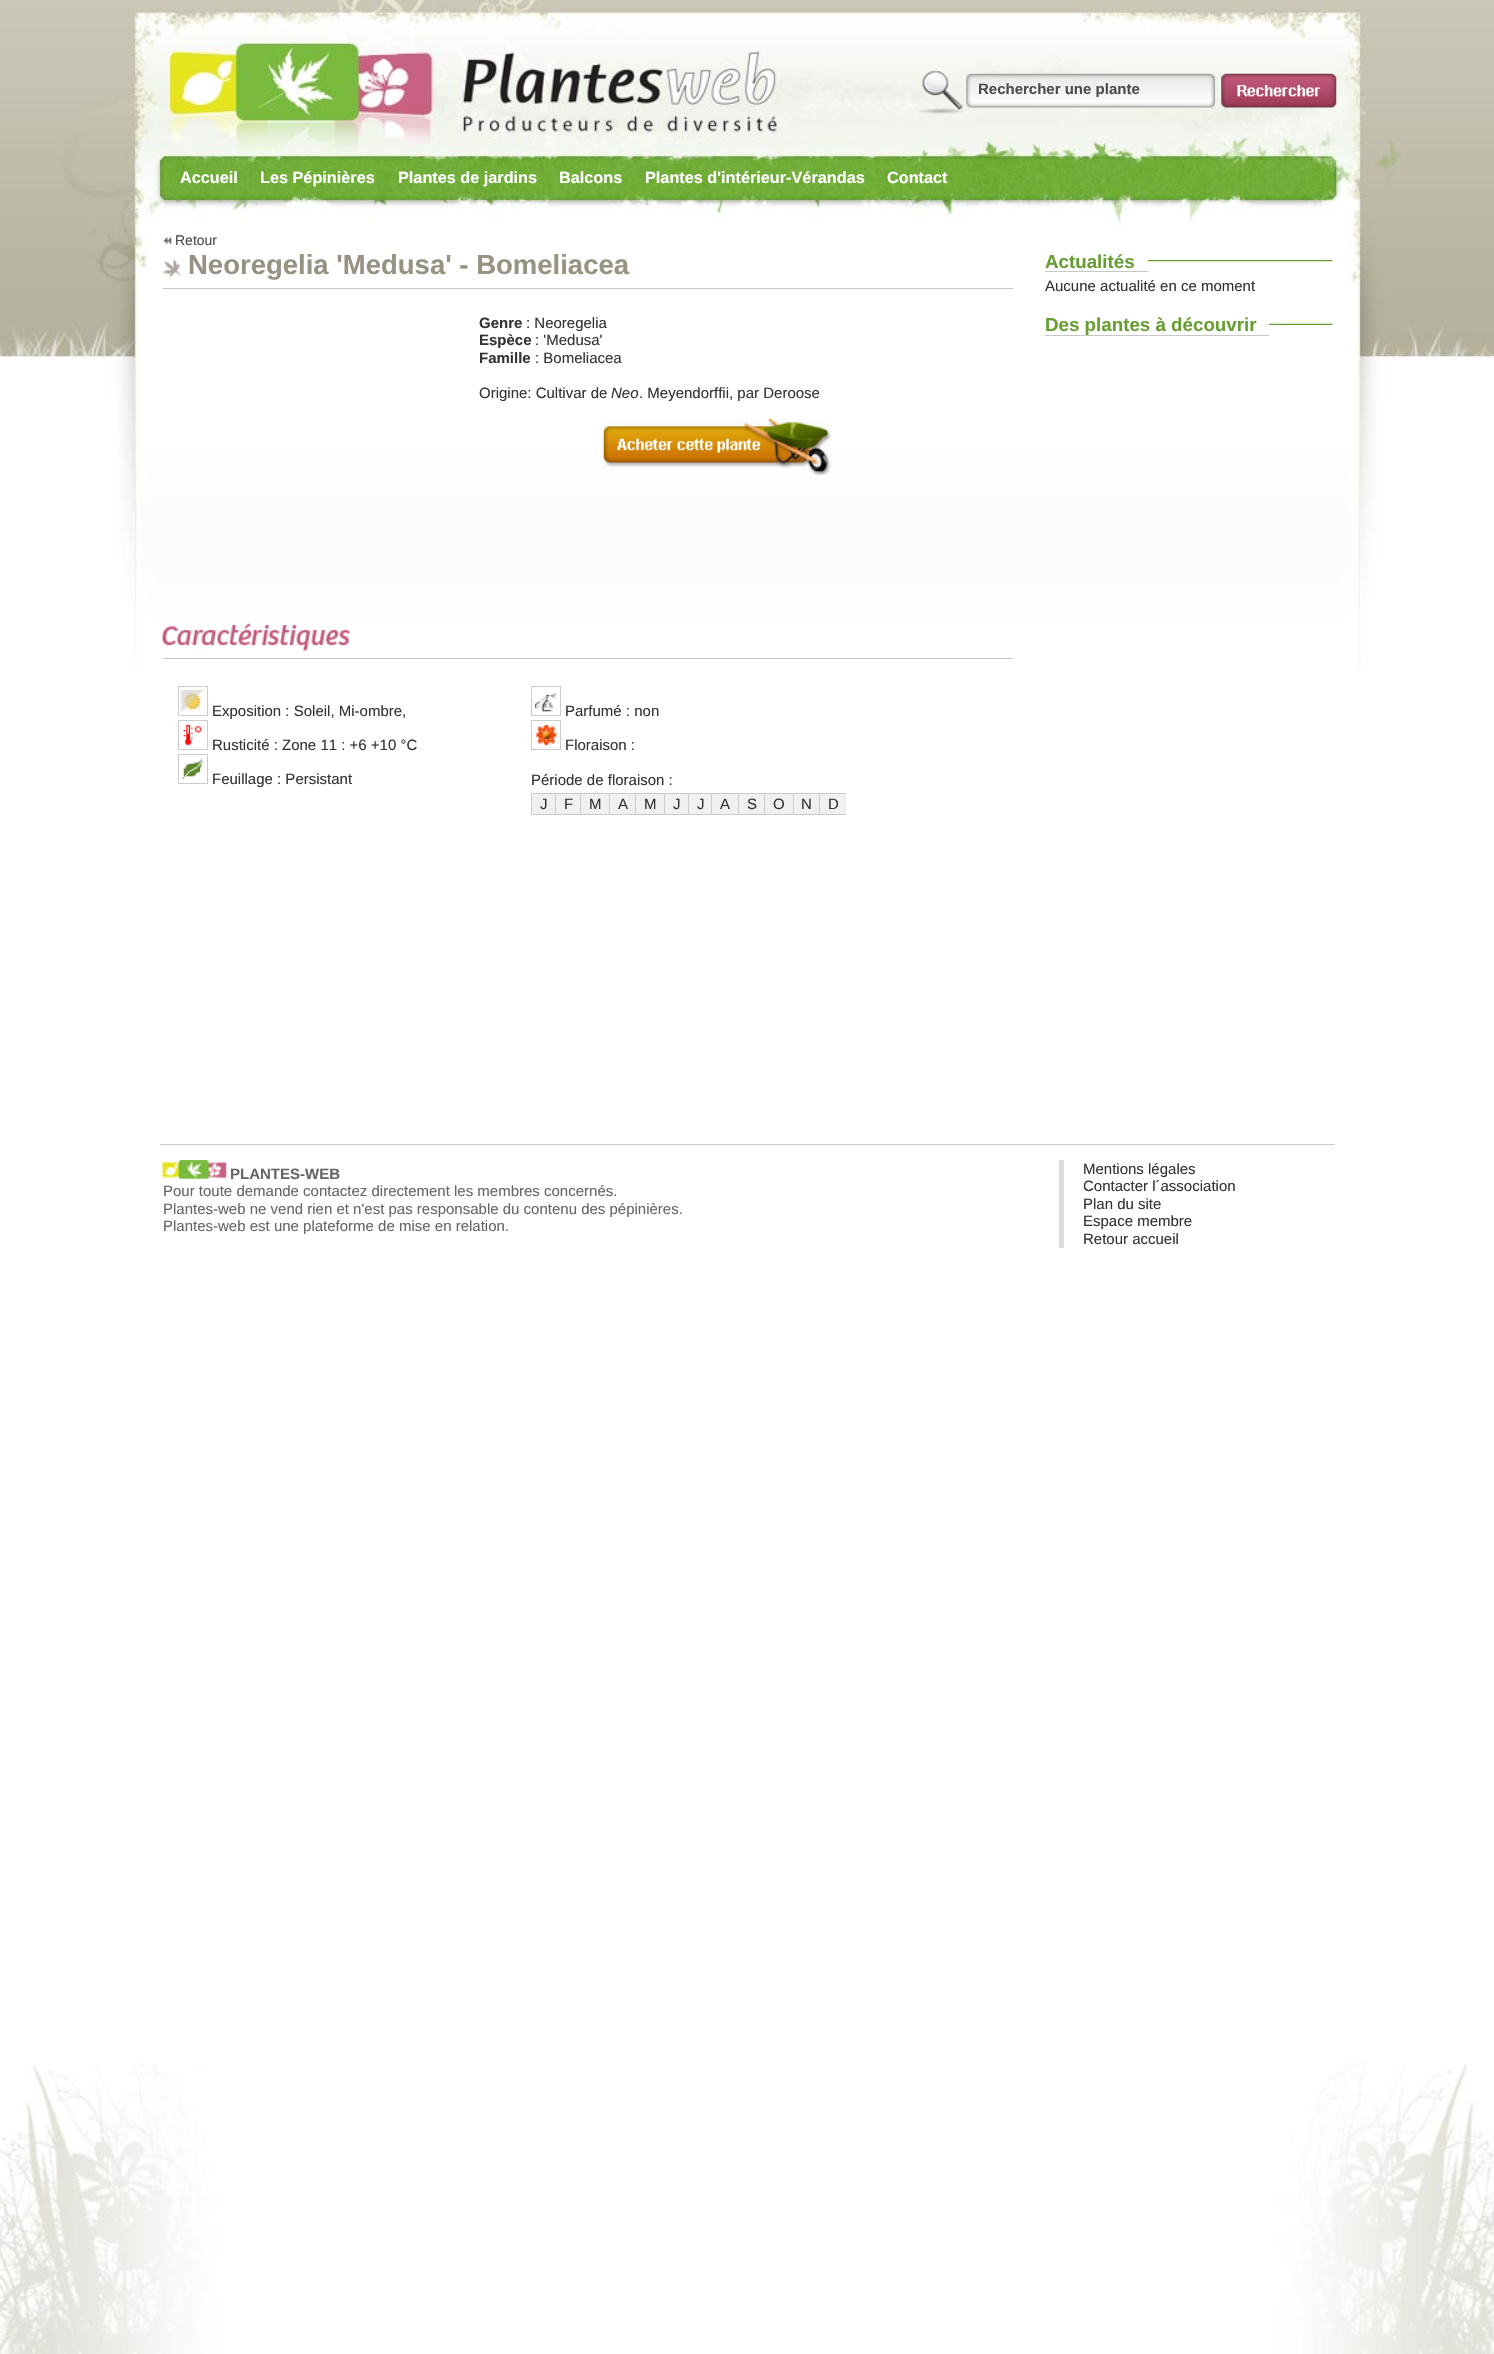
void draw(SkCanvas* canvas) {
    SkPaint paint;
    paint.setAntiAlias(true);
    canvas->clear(0xFFFFFFFF);
    canvas->drawImageRect(SkImages::DeferredFromEncodedData(SkData::MakeFromFileName("img1.png")), SkRect::MakeXYWH(0, 0, 1494, 670), SkSamplingOptions());
    canvas->drawImageRect(SkImages::DeferredFromEncodedData(SkData::MakeFromFileName("img2.png")), SkRect::MakeXYWH(0, 2063, 1494, 291), SkSamplingOptions());
    canvas->drawImageRect(SkImages::DeferredFromEncodedData(SkData::MakeFromFileName("img3.png")), SkRect::MakeXYWH(919, 70, 296, 44), SkSamplingOptions());
    SkFont font1(fontMgr->matchFamilyStyle("Liberation Sans", SkFontStyle::Bold()), 15);
    font1.setSubpixel(true);
    paint.setColor(0xFF4C4C4C);
    canvas->drawString("Rechercher une plante", 978, 94, font1, paint);
    canvas->drawImageRect(SkImages::DeferredFromEncodedData(SkData::MakeFromFileName("img4.png")), SkRect::MakeXYWH(1221, 73, 116, 35), SkSamplingOptions());
    SkFont font2(fontMgr->matchFamilyStyle("Liberation Sans", SkFontStyle::Bold()), 16.25f);
    font2.setSubpixel(true);
    paint.setColor(0xFFFFFFFF);
    canvas->drawString("Accueil", 180, 183, font2, paint);
    canvas->drawString("Les Pépinières", 260, 183, font2, paint);
    canvas->drawString("Plantes de jardins", 398, 183, font2, paint);
    canvas->drawString("Balcons", 559, 183, font2, paint);
    canvas->drawString("Plantes d'intérieur-Vérandas", 645, 183, font2, paint);
    canvas->drawString("Contact", 887, 183, font2, paint);
    canvas->drawImageRect(SkImages::DeferredFromEncodedData(SkData::MakeFromFileName("img5.png")), SkRect::MakeXYWH(163, 237, 9, 7), SkSamplingOptions());
    SkFont font3(fontMgr->matchFamilyStyle("Liberation Sans", SkFontStyle::Normal()), 14);
    font3.setSubpixel(true);
    paint.setColor(0xFF4C4C4C);
    canvas->drawString("Retour", 175, 245, font3, paint);
    canvas->drawImageRect(SkImages::DeferredFromEncodedData(SkData::MakeFromFileName("img6.png")), SkRect::MakeXYWH(162, 259, 21, 19), SkSamplingOptions());
    paint.setColor(0xFFC7C7C7);
    canvas->drawRect(SkRect::MakeXYWH(163, 288, 850, 1), paint);
    SkFont font4(fontMgr->matchFamilyStyle("Liberation Sans", SkFontStyle::Bold()), 27.5f);
    font4.setSubpixel(true);
    paint.setColor(0xFF969382);
    canvas->drawString("Neoregelia 'Medusa' - Bomeliacea", 188, 274, font4, paint);
    paint.setColor(0xFF333333);
    canvas->drawString("Genre", 479, 328, font1, paint);
    SkFont font5(fontMgr->matchFamilyStyle("Liberation Sans", SkFontStyle::Normal()), 15);
    font5.setSubpixel(true);
    canvas->drawString(": Neoregelia", 526, 328, font5, paint);
    canvas->drawString("Espèce", 479, 345, font1, paint);
    canvas->drawString(": 'Medusa'", 535, 345, font5, paint);
    canvas->drawString("Famille", 479, 363, font1, paint);
    canvas->drawString(": Bomeliacea", 535, 363, font5, paint);
    canvas->drawString("Origine: Cultivar de", 479, 398, font5, paint);
    SkFont font6(fontMgr->matchFamilyStyle("Liberation Sans", SkFontStyle::Italic()), 15);
    font6.setSubpixel(true);
    canvas->drawString("Neo", 611, 398, font6, paint);
    canvas->drawString(". Meyendorffii, par Deroose", 639, 398, font5, paint);
    canvas->drawImageRect(SkImages::DeferredFromEncodedData(SkData::MakeFromFileName("img7.png")), SkRect::MakeXYWH(603, 418, 228, 57), SkSamplingOptions());
    paint.setColor(0xFFC7C7C7);
    canvas->drawRect(SkRect::MakeXYWH(163, 658, 850, 1), paint);
    canvas->drawImageRect(SkImages::DeferredFromEncodedData(SkData::MakeFromFileName("img8.png")), SkRect::MakeXYWH(162, 623, 188, 29), SkSamplingOptions());
    paint.setStyle(SkPaint::kStroke_Style);
    paint.setStrokeWidth(1);
    paint.setColor(0xFFCCCCCC);
    canvas->drawRect(SkRect::MakeXYWH(178.5f, 686.5f, 29, 29), paint);
    canvas->drawImageRect(SkImages::DeferredFromEncodedData(SkData::MakeFromFileName("img9.png")), SkRect::MakeXYWH(181, 690, 23, 22), SkSamplingOptions());
    paint.setStyle(SkPaint::kFill_Style);
    paint.setColor(0xFF333333);
    canvas->drawString("Exposition : Soleil, Mi-ombre,", 212, 716, font5, paint);
    paint.setStyle(SkPaint::kStroke_Style);
    paint.setColor(0xFFCCCCCC);
    canvas->drawRect(SkRect::MakeXYWH(178.5f, 720.5f, 29, 29), paint);
    canvas->drawImageRect(SkImages::DeferredFromEncodedData(SkData::MakeFromFileName("img10.png")), SkRect::MakeXYWH(183, 724, 19, 22), SkSamplingOptions());
    paint.setStyle(SkPaint::kFill_Style);
    paint.setColor(0xFF333333);
    canvas->drawString("Rusticité : Zone 11 : +6 +10 °C", 212, 750, font5, paint);
    paint.setStyle(SkPaint::kStroke_Style);
    paint.setColor(0xFFCCCCCC);
    canvas->drawRect(SkRect::MakeXYWH(178.5f, 754.5f, 29, 29), paint);
    canvas->drawImageRect(SkImages::DeferredFromEncodedData(SkData::MakeFromFileName("img11.png")), SkRect::MakeXYWH(182, 758, 21, 21), SkSamplingOptions());
    paint.setStyle(SkPaint::kFill_Style);
    paint.setColor(0xFF333333);
    canvas->drawString("Feuillage : Persistant", 212, 784, font5, paint);
    paint.setStyle(SkPaint::kStroke_Style);
    paint.setColor(0xFFCCCCCC);
    canvas->drawRect(SkRect::MakeXYWH(531.5f, 686.5f, 29, 29), paint);
    canvas->drawImageRect(SkImages::DeferredFromEncodedData(SkData::MakeFromFileName("img12.png")), SkRect::MakeXYWH(535, 693, 22, 19), SkSamplingOptions());
    paint.setStyle(SkPaint::kFill_Style);
    paint.setColor(0xFF333333);
    canvas->drawString("Parfumé : non", 565, 716, font5, paint);
    paint.setStyle(SkPaint::kStroke_Style);
    paint.setColor(0xFFCCCCCC);
    canvas->drawRect(SkRect::MakeXYWH(531.5f, 720.5f, 29, 29), paint);
    canvas->drawImageRect(SkImages::DeferredFromEncodedData(SkData::MakeFromFileName("img13.png")), SkRect::MakeXYWH(535, 724, 23, 22), SkSamplingOptions());
    paint.setStyle(SkPaint::kFill_Style);
    paint.setColor(0xFF333333);
    canvas->drawString("Floraison :", 565, 750, font5, paint);
    canvas->drawString("Période de floraison :", 531, 785, font5, paint);
    paint.setColor(0xFFF0F0F0);
    canvas->drawRect(SkRect::MakeXYWH(532, 794, 23, 20), paint);
    paint.setColor(0xFFCCCCCC);
    canvas->drawRect(SkRect::MakeXYWH(531, 793, 315, 1), paint);
    canvas->drawRect(SkRect::MakeXYWH(531, 814, 315, 1), paint);
    canvas->drawRect(SkRect::MakeXYWH(531, 793, 1, 22), paint);
    paint.setColor(0xFF333333);
    canvas->drawString("J", 540, 809, font5, paint);
    paint.setColor(0xFFF0F0F0);
    canvas->drawRect(SkRect::MakeXYWH(556, 794, 24, 20), paint);
    paint.setColor(0xFFCCCCCC);
    canvas->drawRect(SkRect::MakeXYWH(555, 793, 1, 22), paint);
    paint.setColor(0xFF333333);
    canvas->drawString("F", 564, 809, font5, paint);
    paint.setColor(0xFFF0F0F0);
    canvas->drawRect(SkRect::MakeXYWH(581, 794, 28, 20), paint);
    paint.setColor(0xFFCCCCCC);
    canvas->drawRect(SkRect::MakeXYWH(580, 793, 1, 22), paint);
    paint.setColor(0xFF333333);
    canvas->drawString("M", 589, 809, font5, paint);
    paint.setColor(0xFFF0F0F0);
    canvas->drawRect(SkRect::MakeXYWH(610, 794, 25, 20), paint);
    paint.setColor(0xFFCCCCCC);
    canvas->drawRect(SkRect::MakeXYWH(609, 793, 1, 22), paint);
    paint.setColor(0xFF333333);
    canvas->drawString("A", 618, 809, font5, paint);
    paint.setColor(0xFFF0F0F0);
    canvas->drawRect(SkRect::MakeXYWH(636, 794, 28, 20), paint);
    paint.setColor(0xFFCCCCCC);
    canvas->drawRect(SkRect::MakeXYWH(635, 793, 1, 22), paint);
    paint.setColor(0xFF333333);
    canvas->drawString("M", 644, 809, font5, paint);
    paint.setColor(0xFFF0F0F0);
    canvas->drawRect(SkRect::MakeXYWH(665, 794, 23, 20), paint);
    paint.setColor(0xFFCCCCCC);
    canvas->drawRect(SkRect::MakeXYWH(664, 793, 1, 22), paint);
    paint.setColor(0xFF333333);
    canvas->drawString("J", 673, 809, font5, paint);
    paint.setColor(0xFFF0F0F0);
    canvas->drawRect(SkRect::MakeXYWH(689, 794, 22, 20), paint);
    paint.setColor(0xFFCCCCCC);
    canvas->drawRect(SkRect::MakeXYWH(688, 793, 1, 22), paint);
    paint.setColor(0xFF333333);
    canvas->drawString("J", 697, 809, font5, paint);
    paint.setColor(0xFFF0F0F0);
    canvas->drawRect(SkRect::MakeXYWH(712, 794, 26, 20), paint);
    paint.setColor(0xFFCCCCCC);
    canvas->drawRect(SkRect::MakeXYWH(711, 793, 1, 22), paint);
    paint.setColor(0xFF333333);
    canvas->drawString("A", 720, 809, font5, paint);
    paint.setColor(0xFFF0F0F0);
    canvas->drawRect(SkRect::MakeXYWH(739, 794, 25, 20), paint);
    paint.setColor(0xFFCCCCCC);
    canvas->drawRect(SkRect::MakeXYWH(738, 793, 1, 22), paint);
    paint.setColor(0xFF333333);
    canvas->drawString("S", 747, 809, font5, paint);
    paint.setColor(0xFFF0F0F0);
    canvas->drawRect(SkRect::MakeXYWH(765, 794, 28, 20), paint);
    paint.setColor(0xFFCCCCCC);
    canvas->drawRect(SkRect::MakeXYWH(764, 793, 1, 22), paint);
    paint.setColor(0xFF333333);
    canvas->drawString("O", 773, 809, font5, paint);
    paint.setColor(0xFFF0F0F0);
    canvas->drawRect(SkRect::MakeXYWH(794, 794, 25, 20), paint);
    paint.setColor(0xFFCCCCCC);
    canvas->drawRect(SkRect::MakeXYWH(793, 793, 1, 22), paint);
    paint.setColor(0xFF333333);
    canvas->drawString("N", 801, 809, font5, paint);
    paint.setColor(0xFFF0F0F0);
    canvas->drawRect(SkRect::MakeXYWH(820, 794, 26, 20), paint);
    paint.setColor(0xFFCCCCCC);
    canvas->drawRect(SkRect::MakeXYWH(819, 793, 1, 22), paint);
    paint.setColor(0xFF333333);
    canvas->drawString("D", 828, 809, font5, paint);
    canvas->drawImageRect(SkImages::DeferredFromEncodedData(SkData::MakeFromFileName("img14.png")), SkRect::MakeXYWH(1148, 260, 185, 2), SkSamplingOptions());
    SkFont font7(fontMgr->matchFamilyStyle("Liberation Sans", SkFontStyle::Bold()), 18.75f);
    font7.setSubpixel(true);
    paint.setColor(0xFF679E34);
    canvas->drawString("Actualités", 1045, 268, font7, paint);
    paint.setColor(0xFFC7C7C7);
    canvas->drawRect(SkRect::MakeXYWH(1045, 271, 103, 1), paint);
    paint.setColor(0xFF333333);
    canvas->drawString("Aucune actualité en ce moment", 1045, 291, font5, paint);
    canvas->drawImageRect(SkImages::DeferredFromEncodedData(SkData::MakeFromFileName("img15.png")), SkRect::MakeXYWH(1269, 323, 64, 2), SkSamplingOptions());
    paint.setColor(0xFF679E34);
    canvas->drawString("Des plantes à découvrir", 1045, 331, font7, paint);
    paint.setColor(0xFFC7C7C7);
    canvas->drawRect(SkRect::MakeXYWH(1045, 335, 224, 1), paint);
    paint.setColor(0xFFCCCCCC);
    canvas->drawRect(SkRect::MakeXYWH(160, 1144, 1175, 1), paint);
    canvas->drawImageRect(SkImages::DeferredFromEncodedData(SkData::MakeFromFileName("img16.png")), SkRect::MakeXYWH(162, 1160, 65, 19), SkSamplingOptions());
    paint.setColor(0xFF666666);
    canvas->drawString("PLANTES-WEB", 230, 1179, font1, paint);
    canvas->drawString("Pour toute demande contactez directement les membres concernés.", 163, 1196, font5, paint);
    canvas->drawString("Plantes-web ne vend rien et n'est pas responsable du contenu des pépinières.", 163, 1214, font5, paint);
    canvas->drawString("Plantes-web est une plateforme de mise en relation.", 163, 1231, font5, paint);
    paint.setColor(0xFFDDDDDD);
    canvas->drawRect(SkRect::MakeXYWH(1059, 1160, 5, 88), paint);
    paint.setColor(0xFF333333);
    canvas->drawString("Mentions légales", 1083, 1174, font5, paint);
    canvas->drawString("Contacter l´association", 1083, 1191, font5, paint);
    canvas->drawString("Plan du site", 1083, 1209, font5, paint);
    canvas->drawString("Espace membre", 1083, 1226, font5, paint);
    canvas->drawString("Retour accueil", 1083, 1244, font5, paint);
}
